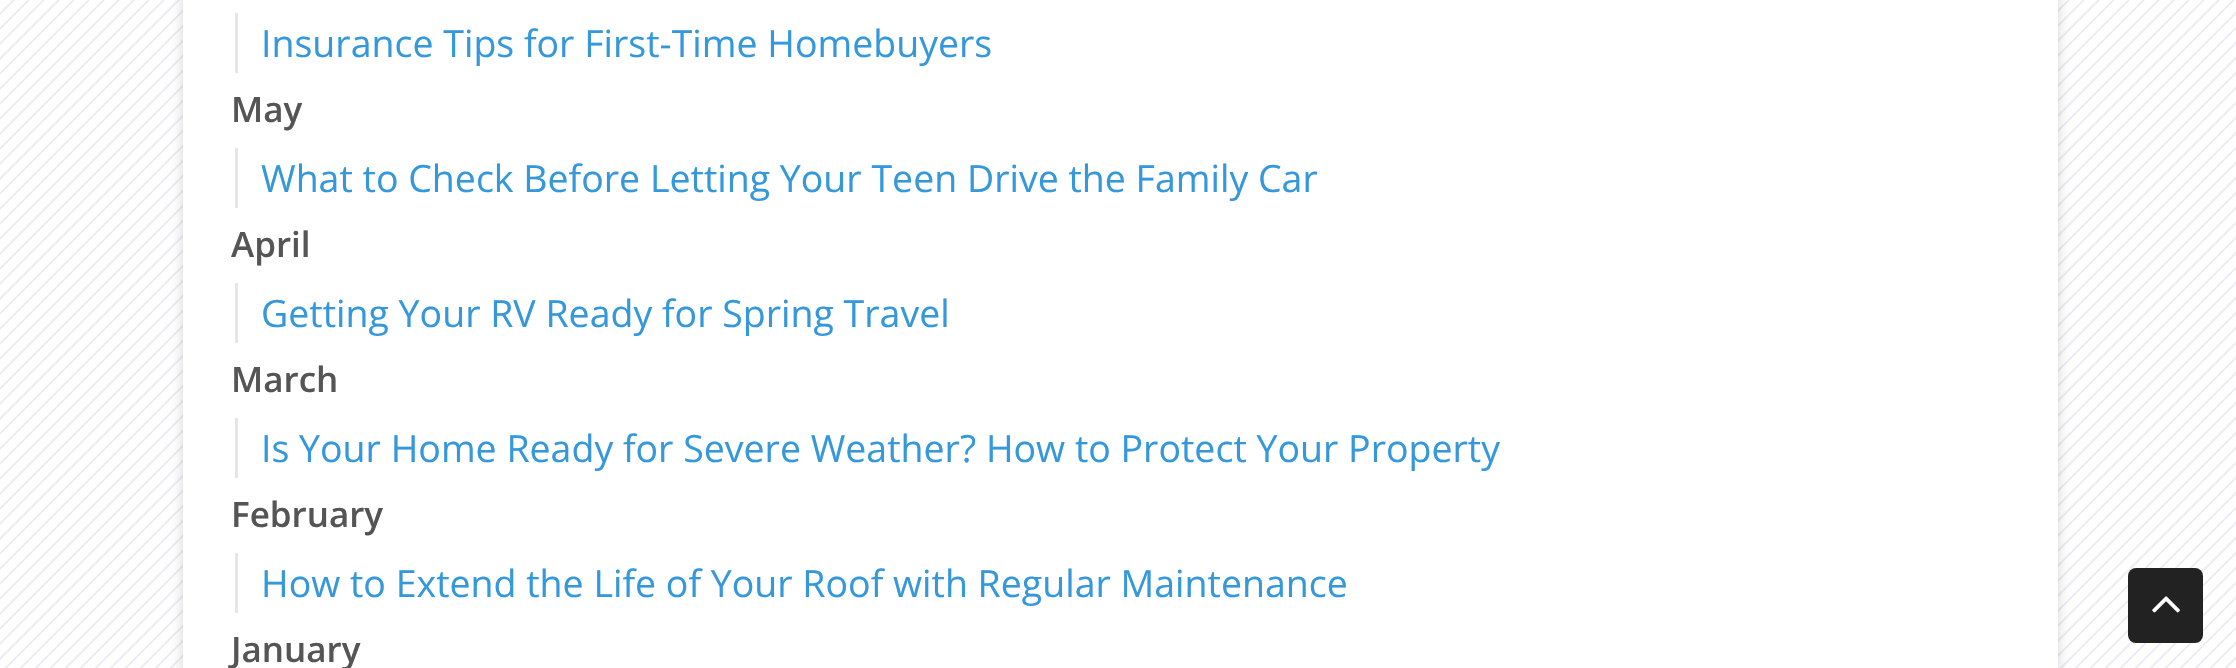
void draw(SkCanvas* canvas) {
    SkPaint paint;
    paint.setAntiAlias(true);
    canvas->clear(0xFFFFFFFF);
    canvas->drawImageRect(SkImages::DeferredFromEncodedData(SkData::MakeFromFileName("img1.png")), SkRect::MakeXYWH(0, 0, 2236, 668), SkSamplingOptions());
    paint.setColor(0x29000000);
    paint.setMaskFilter(SkMaskFilter::MakeBlur(kNormal_SkBlurStyle, 6));
    canvas->drawRect(SkRect::MakeXYWH(183, -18, 1875, 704), paint);
    paint.setMaskFilter(nullptr);
    paint.setColor(0xFFFFFFFF);
    canvas->drawRect(SkRect::MakeXYWH(183, 0, 1875, 668), paint);
    paint.setColor(0xFFE6E6E6);
    canvas->drawRect(SkRect::MakeXYWH(235, 13, 3, 60), paint);
    SkFont font1(fontMgr->matchFamilyStyle("Open Sans", SkFontStyle::Normal()), 37.5f);
    font1.setSubpixel(true);
    paint.setColor(0xFF3498DB);
    canvas->drawString("Insurance Tips for First-Time Homebuyers", 261, 57, font1, paint);
    SkFont font2(fontMgr->matchFamilyStyle("Open Sans", SkFontStyle(600, SkFontStyle::kNormal_Width, SkFontStyle::kUpright_Slant)), 35);
    font2.setSubpixel(true);
    paint.setColor(0xFF555555);
    canvas->drawString("May", 231, 122, font2, paint);
    paint.setColor(0xFFE6E6E6);
    canvas->drawRect(SkRect::MakeXYWH(235, 148, 3, 60), paint);
    paint.setColor(0xFF3498DB);
    canvas->drawString("What to Check Before Letting Your Teen Drive the Family Car", 261, 192, font1, paint);
    paint.setColor(0xFF555555);
    canvas->drawString("April", 231, 257, font2, paint);
    paint.setColor(0xFFE6E6E6);
    canvas->drawRect(SkRect::MakeXYWH(235, 283, 3, 60), paint);
    paint.setColor(0xFF3498DB);
    canvas->drawString("Getting Your RV Ready for Spring Travel", 261, 327, font1, paint);
    paint.setColor(0xFF555555);
    canvas->drawString("March", 231, 392, font2, paint);
    paint.setColor(0xFFE6E6E6);
    canvas->drawRect(SkRect::MakeXYWH(235, 418, 3, 60), paint);
    paint.setColor(0xFF3498DB);
    canvas->drawString("Is Your Home Ready for Severe Weather? How to Protect Your Property", 261, 462, font1, paint);
    paint.setColor(0xFF555555);
    canvas->drawString("February", 231, 527, font2, paint);
    paint.setColor(0xFFE6E6E6);
    canvas->drawRect(SkRect::MakeXYWH(235, 553, 3, 60), paint);
    paint.setColor(0xFF3498DB);
    canvas->drawString("How to Extend the Life of Your Roof with Regular Maintenance", 261, 597, font1, paint);
    paint.setColor(0xFF555555);
    canvas->drawString("January", 231, 662, font2, paint);
    paint.setColor(0xFF222222);
    canvas->drawRoundRect(SkRect::MakeXYWH(2128, 568, 75, 75), 8, 8, paint);
    canvas->drawImageRect(SkImages::DeferredFromEncodedData(SkData::MakeFromFileName("img2.png")), SkRect::MakeXYWH(2152, 596, 28, 17), SkSamplingOptions());
}
